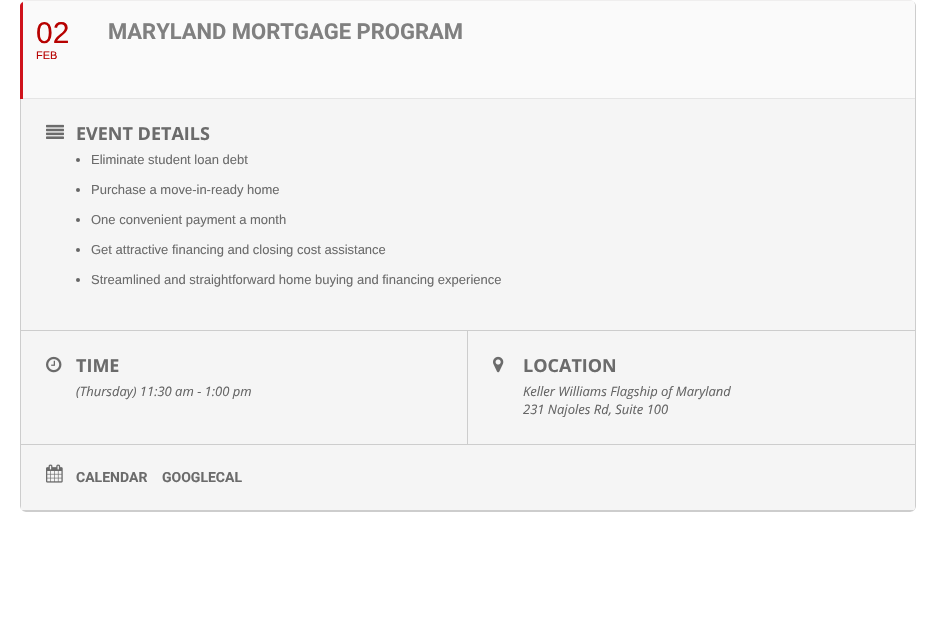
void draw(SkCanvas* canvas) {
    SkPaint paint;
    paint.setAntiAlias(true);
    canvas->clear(0xFFFFFFFF);
    paint.setColor(0xFFEFEEEE);
    canvas->drawPath(SkPathBuilder().moveTo(26, 0).lineTo(910, 0).cubicTo(912, 0, 913, 1, 914, 2).cubicTo(913, 2, 912, 1, 910, 1).lineTo(26, 1).cubicTo(23, 1, 20, 3, 20, 6).cubicTo(20, 3, 23, 0, 26, 0).close().detach(), paint);
    paint.setColor(0xFFCDCDCD);
    canvas->drawPath(SkPathBuilder().moveTo(914, 2).cubicTo(914, 3, 915, 4, 915, 6).lineTo(915, 506).cubicTo(915, 509, 913, 512, 910, 512).cubicTo(913, 512, 916, 509, 916, 506).lineTo(916, 6).cubicTo(916, 4, 915, 3, 914, 2).close().detach(), paint);
    paint.setColor(0xFFFAFAFA);
    canvas->drawPath(SkPathBuilder().moveTo(26, 1).cubicTo(23, 1, 20, 3, 20, 6).lineTo(20, 99).lineTo(915, 99).lineTo(915, 6).cubicTo(915, 3, 913, 1, 910, 1).close().detach(), paint);
    paint.setColor(0xFFCF131C);
    canvas->drawPath(SkPathBuilder().moveTo(23, 2).cubicTo(21, 3, 20, 4, 20, 6).lineTo(20, 99).lineTo(23, 99).close().detach(), paint);
    SkFont font1(fontMgr->matchFamilyStyle("Liberation Sans", SkFontStyle::Normal()), 30);
    font1.setSubpixel(true);
    paint.setColor(0xFFB70100);
    canvas->drawString("02", 36, 43, font1, paint);
    SkFont font2(fontMgr->matchFamilyStyle("Liberation Sans", SkFontStyle::Normal()), 11);
    font2.setSubpixel(true);
    canvas->drawString("FEB", 36, 59, font2, paint);
    SkFont font3(fontMgr->matchFamilyStyle("Roboto", SkFontStyle::Bold()), 22);
    font3.setSubpixel(true);
    paint.setColor(0xFF808080);
    canvas->drawString("MARYLAND MORTGAGE PROGRAM", 108, 39, font3, paint);
    paint.setColor(0xFFE5E5E5);
    canvas->drawRect(SkRect::MakeXYWH(23, 98, 892, 1), paint);
    paint.setColor(0xFFF5F5F5);
    canvas->drawPath(SkPathBuilder().moveTo(20, 99).lineTo(20, 506).cubicTo(20, 509, 23, 512, 26, 512).lineTo(910, 512).cubicTo(913, 512, 915, 509, 915, 506).lineTo(915, 99).close().detach(), paint);
    paint.setColor(0xFFCDCDCD);
    canvas->drawPath(SkPathBuilder().moveTo(26, 512).lineTo(910, 512).lineTo(913, 511).lineTo(23, 511).close().detach(), paint);
    canvas->drawPath(SkPathBuilder().moveTo(20, 99).lineTo(20, 506).lineTo(21, 509).lineTo(21, 99).close().detach(), paint);
    canvas->drawRect(SkRect::MakeXYWH(21, 330, 894, 1), paint);
    canvas->drawImageRect(SkImages::DeferredFromEncodedData(SkData::MakeFromFileName("img1.png")), SkRect::MakeXYWH(46, 124, 18, 15), SkSamplingOptions());
    SkFont font4(fontMgr->matchFamilyStyle("Open Sans", SkFontStyle::Bold()), 18);
    font4.setSubpixel(true);
    paint.setColor(0xFF6B6B6B);
    canvas->drawString("EVENT DETAILS", 76, 140, font4, paint);
    paint.setColor(0xFF666666);
    canvas->drawCircle(78, 160, 2, paint);
    SkFont font5(fontMgr->matchFamilyStyle("Liberation Sans", SkFontStyle::Normal()), 13);
    font5.setSubpixel(true);
    paint.setColor(0xFF6B6B6B);
    canvas->drawString("Eliminate student loan debt", 91, 164, font5, paint);
    paint.setColor(0xFF666666);
    canvas->drawCircle(78, 190, 2, paint);
    paint.setColor(0xFF6B6B6B);
    canvas->drawString("Purchase a move-in-ready home", 91, 194, font5, paint);
    paint.setColor(0xFF666666);
    canvas->drawCircle(78, 220, 2, paint);
    paint.setColor(0xFF6B6B6B);
    canvas->drawString("One convenient payment a month", 91, 224, font5, paint);
    paint.setColor(0xFF666666);
    canvas->drawCircle(78, 250, 2, paint);
    paint.setColor(0xFF6B6B6B);
    canvas->drawString("Get attractive financing and closing cost assistance", 91, 254, font5, paint);
    paint.setColor(0xFF666666);
    canvas->drawCircle(78, 280, 2, paint);
    paint.setColor(0xFF6B6B6B);
    canvas->drawString("Streamlined and straightforward home buying and financing experience", 91, 284, font5, paint);
    paint.setColor(0xFFCDCDCD);
    canvas->drawRect(SkRect::MakeXYWH(21, 444, 894, 1), paint);
    canvas->drawRect(SkRect::MakeXYWH(467, 331, 1, 113), paint);
    canvas->drawImageRect(SkImages::DeferredFromEncodedData(SkData::MakeFromFileName("img2.png")), SkRect::MakeXYWH(46, 356, 16, 17), SkSamplingOptions());
    paint.setColor(0xFF6B6B6B);
    canvas->drawString("TIME", 76, 372, font4, paint);
    SkFont font6(fontMgr->matchFamilyStyle("Open Sans", SkFontStyle::Italic()), 13);
    font6.setSubpixel(true);
    paint.setColor(0xFF656565);
    canvas->drawString("(Thursday) 11:30 am - 1:00 pm", 76, 396, font6, paint);
    canvas->drawImageRect(SkImages::DeferredFromEncodedData(SkData::MakeFromFileName("img3.png")), SkRect::MakeXYWH(493, 356, 11, 17), SkSamplingOptions());
    paint.setColor(0xFF6B6B6B);
    canvas->drawString("LOCATION", 523, 372, font4, paint);
    paint.setColor(0xFF656565);
    canvas->drawString("Keller Williams Flagship of Maryland", 523, 396, font6, paint);
    canvas->drawString("231 Najoles Rd, Suite 100", 523, 414, font6, paint);
    paint.setColor(0xFFF5F5F5);
    canvas->drawPath(SkPathBuilder().moveTo(21, 445).lineTo(915, 445).lineTo(915, 506).cubicTo(915, 508, 914, 510, 913, 511).lineTo(23, 511).lineTo(21, 509).close().detach(), paint);
    paint.setColor(0xFFCDCDCD);
    canvas->drawPath(SkPathBuilder().moveTo(23, 511).lineTo(22, 510).lineTo(914, 510).lineTo(913, 511).close().detach(), paint);
    canvas->drawImageRect(SkImages::DeferredFromEncodedData(SkData::MakeFromFileName("img4.png")), SkRect::MakeXYWH(46, 464, 17, 19), SkSamplingOptions());
    SkFont font7(fontMgr->matchFamilyStyle("Roboto", SkFontStyle::Bold()), 14);
    font7.setSubpixel(true);
    paint.setColor(0xFF6B6B6B);
    canvas->drawString("CALENDAR", 76, 482, font7, paint);
    canvas->drawString("GOOGLECAL", 162, 482, font7, paint);
}
